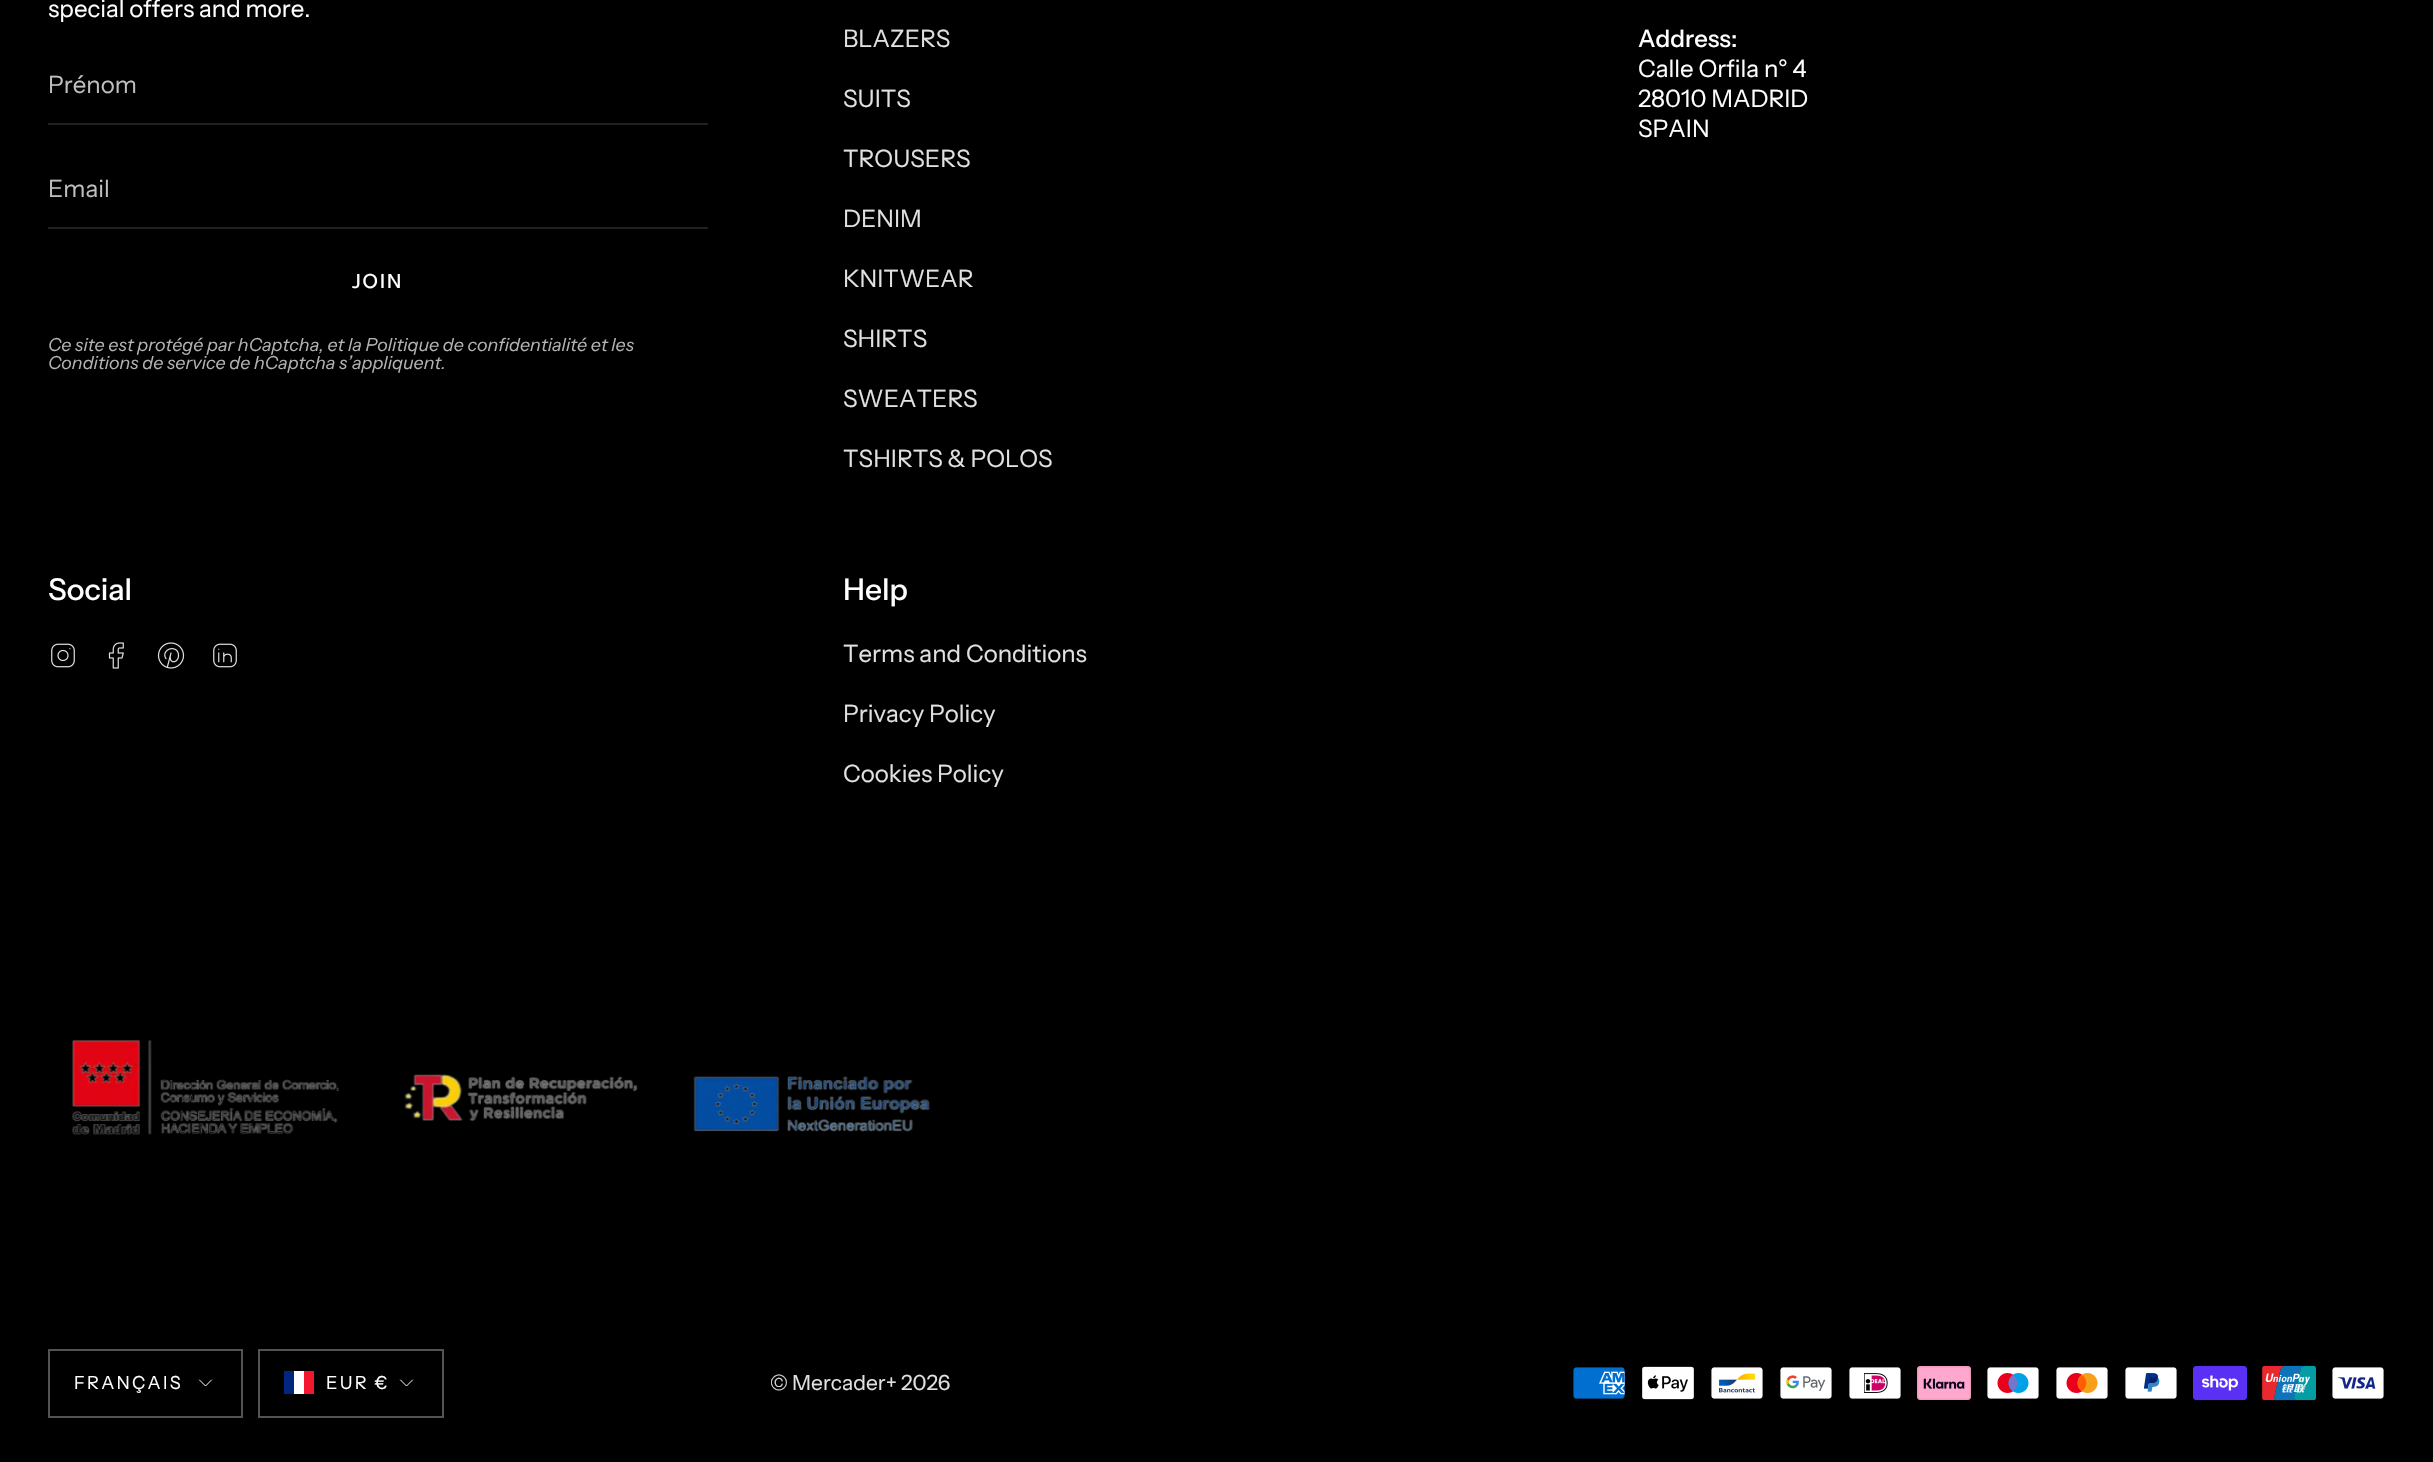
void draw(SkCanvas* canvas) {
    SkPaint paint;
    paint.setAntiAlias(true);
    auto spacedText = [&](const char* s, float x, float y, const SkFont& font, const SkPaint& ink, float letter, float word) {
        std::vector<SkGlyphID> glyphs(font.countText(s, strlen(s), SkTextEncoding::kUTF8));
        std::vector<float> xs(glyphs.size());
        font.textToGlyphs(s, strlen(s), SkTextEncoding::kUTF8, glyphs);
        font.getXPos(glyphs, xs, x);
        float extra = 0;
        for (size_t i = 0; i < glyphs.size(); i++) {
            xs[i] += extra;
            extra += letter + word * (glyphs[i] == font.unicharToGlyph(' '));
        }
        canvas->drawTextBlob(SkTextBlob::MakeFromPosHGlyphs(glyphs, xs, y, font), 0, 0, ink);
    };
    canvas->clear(0xFF000000);
    SkFont font1(fontMgr->matchFamilyStyle("Instrument Sans", SkFontStyle::Normal()), 24);
    font1.setSubpixel(true);
    paint.setColor(0xFFFFFFFF);
    canvas->drawString("special offers and more.", 48, 17, font1, paint);
    paint.setColor(0xFF212121);
    canvas->drawRect(SkRect::MakeXYWH(48, 123, 660, 2), paint);
    paint.setColor(0xFFBFBFBF);
    canvas->drawString("Prénom", 48, 93, font1, paint);
    paint.setColor(0xFF212121);
    canvas->drawRect(SkRect::MakeXYWH(48, 227, 660, 2), paint);
    paint.setColor(0xFFBFBFBF);
    canvas->drawString("Email", 48, 197, font1, paint);
    SkFont font2(fontMgr->matchFamilyStyle("Instrument Sans", SkFontStyle(500, SkFontStyle::kNormal_Width, SkFontStyle::kUpright_Slant)), 19.5f);
    font2.setSubpixel(true);
    paint.setColor(0xFFFFFFFF);
    spacedText("JOIN", 352, 288, font2, paint, 2, 0);
    SkFont font3(fontMgr->matchFamilyStyle("Instrument Sans", SkFontStyle::Italic()), 18);
    font3.setSubpixel(true);
    paint.setColor(0xFFB3B3B3);
    canvas->drawString("Ce site est protégé par hCaptcha, et la Politique de confidentialité et les", 48, 351, font3, paint);
    canvas->drawString("Conditions de service de hCaptcha s’appliquent.", 48, 369, font3, paint);
    paint.setColor(0xFFE1E1E1);
    canvas->drawString("BLAZERS", 843, 47, font1, paint);
    canvas->drawString("SUITS", 843, 107, font1, paint);
    canvas->drawString("TROUSERS", 843, 167, font1, paint);
    canvas->drawString("DENIM", 843, 227, font1, paint);
    canvas->drawString("KNITWEAR", 843, 287, font1, paint);
    canvas->drawString("SHIRTS", 843, 347, font1, paint);
    canvas->drawString("SWEATERS", 843, 407, font1, paint);
    canvas->drawString("TSHIRTS & POLOS", 843, 467, font1, paint);
    SkFont font4(fontMgr->matchFamilyStyle("Instrument Sans", SkFontStyle(500, SkFontStyle::kNormal_Width, SkFontStyle::kUpright_Slant)), 24);
    font4.setSubpixel(true);
    paint.setColor(0xFFFFFFFF);
    canvas->drawString("Address:", 1638, 47, font4, paint);
    canvas->drawString("Calle Orfila n° 4", 1638, 77, font1, paint);
    canvas->drawString("28010 MADRID", 1638, 107, font1, paint);
    canvas->drawString("SPAIN", 1638, 137, font1, paint);
    SkFont font5(fontMgr->matchFamilyStyle("Instrument Sans", SkFontStyle(500, SkFontStyle::kNormal_Width, SkFontStyle::kUpright_Slant)), 30);
    font5.setSubpixel(true);
    canvas->drawString("Social", 48, 600, font5, paint);
    canvas->drawImageRect(SkImages::DeferredFromEncodedData(SkData::MakeFromFileName("img1.png")), SkRect::MakeXYWH(51, 643, 24, 25), SkSamplingOptions());
    canvas->drawImageRect(SkImages::DeferredFromEncodedData(SkData::MakeFromFileName("img2.png")), SkRect::MakeXYWH(108, 642, 16, 27), SkSamplingOptions());
    canvas->drawImageRect(SkImages::DeferredFromEncodedData(SkData::MakeFromFileName("img3.png")), SkRect::MakeXYWH(157, 642, 28, 27), SkSamplingOptions());
    canvas->drawImageRect(SkImages::DeferredFromEncodedData(SkData::MakeFromFileName("img4.png")), SkRect::MakeXYWH(213, 643, 24, 25), SkSamplingOptions());
    canvas->drawString("Help", 843, 600, font5, paint);
    paint.setColor(0xFFE1E1E1);
    canvas->drawString("Terms and Conditions", 843, 662, font1, paint);
    canvas->drawString("Privacy Policy", 843, 722, font1, paint);
    canvas->drawString("Cookies Policy", 843, 782, font1, paint);
    canvas->drawImageRect(SkImages::DeferredFromEncodedData(SkData::MakeFromFileName("img5.png")), SkRect::MakeXYWH(72, 1040, 858, 95), SkSamplingOptions());
    paint.setStyle(SkPaint::kStroke_Style);
    paint.setStrokeWidth(2);
    paint.setColor(0xFF535353);
    canvas->drawRect(SkRect::MakeXYWH(49, 1350, 193, 67), paint);
    SkFont font6(fontMgr->matchFamilyStyle("Instrument Sans", SkFontStyle::Normal()), 18);
    font6.setSubpixel(true);
    paint.setStyle(SkPaint::kFill_Style);
    paint.setColor(0xFFFFFFFF);
    spacedText("FRANÇAIS", 74, 1389, font6, paint, 2.25f, 0);
    paint.setStyle(SkPaint::kStroke_Style);
    paint.setStrokeWidth(1);
    paint.setStrokeCap(SkPaint::kRound_Cap);
    paint.setStrokeJoin(SkPaint::kRound_Join);
    canvas->drawPath(SkPathBuilder().moveTo(199.5f, 1380).lineTo(205.5f, 1386).lineTo(211.5f, 1380).detach(), paint);
    paint.setStrokeWidth(2);
    paint.setStrokeCap(SkPaint::kButt_Cap);
    paint.setStrokeJoin(SkPaint::kMiter_Join);
    paint.setColor(0xFF535353);
    canvas->drawRect(SkRect::MakeXYWH(259, 1350, 184, 67), paint);
    paint.setStyle(SkPaint::kFill_Style);
    paint.setColor(0xFFFFFFFF);
    canvas->drawRect(SkRect::MakeXYWH(294, 1371, 10, 23), paint);
    paint.setColor(0xFF00267F);
    canvas->drawRect(SkRect::MakeXYWH(284, 1371, 10, 23), paint);
    paint.setColor(0xFFF31830);
    canvas->drawRect(SkRect::MakeXYWH(304, 1371, 10, 23), paint);
    paint.setColor(0xFFFFFFFF);
    spacedText("EUR €", 326, 1389, font6, paint, 2.25f, 0);
    paint.setStyle(SkPaint::kStroke_Style);
    paint.setStrokeWidth(1);
    paint.setStrokeCap(SkPaint::kRound_Cap);
    paint.setStrokeJoin(SkPaint::kRound_Join);
    canvas->drawPath(SkPathBuilder().moveTo(400.5f, 1380).lineTo(406.5f, 1386).lineTo(412.5f, 1380).detach(), paint);
    SkFont font7(fontMgr->matchFamilyStyle("Instrument Sans", SkFontStyle::Normal()), 21);
    font7.setSubpixel(true);
    paint.setStyle(SkPaint::kFill_Style);
    paint.setColor(0xFFE1E1E1);
    canvas->drawString("© Mercader+ 2026", 770, 1390, font7, paint);
    canvas->drawImageRect(SkImages::DeferredFromEncodedData(SkData::MakeFromFileName("img6.png")), SkRect::MakeXYWH(1573, 1367, 52, 32), SkSamplingOptions());
    canvas->drawImageRect(SkImages::DeferredFromEncodedData(SkData::MakeFromFileName("img7.png")), SkRect::MakeXYWH(1642, 1366, 52, 34), SkSamplingOptions());
    canvas->drawImageRect(SkImages::DeferredFromEncodedData(SkData::MakeFromFileName("img8.png")), SkRect::MakeXYWH(1711, 1367, 52, 32), SkSamplingOptions());
    canvas->drawImageRect(SkImages::DeferredFromEncodedData(SkData::MakeFromFileName("img9.png")), SkRect::MakeXYWH(1780, 1367, 52, 32), SkSamplingOptions());
    canvas->drawImageRect(SkImages::DeferredFromEncodedData(SkData::MakeFromFileName("img10.png")), SkRect::MakeXYWH(1849, 1367, 52, 32), SkSamplingOptions());
    canvas->drawImageRect(SkImages::DeferredFromEncodedData(SkData::MakeFromFileName("img11.png")), SkRect::MakeXYWH(1917, 1366, 54, 34), SkSamplingOptions());
    canvas->drawImageRect(SkImages::DeferredFromEncodedData(SkData::MakeFromFileName("img12.png")), SkRect::MakeXYWH(1987, 1367, 52, 32), SkSamplingOptions());
    canvas->drawImageRect(SkImages::DeferredFromEncodedData(SkData::MakeFromFileName("img13.png")), SkRect::MakeXYWH(2056, 1367, 52, 32), SkSamplingOptions());
    canvas->drawImageRect(SkImages::DeferredFromEncodedData(SkData::MakeFromFileName("img14.png")), SkRect::MakeXYWH(2125, 1367, 52, 32), SkSamplingOptions());
    canvas->drawImageRect(SkImages::DeferredFromEncodedData(SkData::MakeFromFileName("img15.png")), SkRect::MakeXYWH(2193, 1365, 54, 36), SkSamplingOptions());
    canvas->drawImageRect(SkImages::DeferredFromEncodedData(SkData::MakeFromFileName("img16.png")), SkRect::MakeXYWH(2262, 1365, 54, 36), SkSamplingOptions());
    canvas->drawImageRect(SkImages::DeferredFromEncodedData(SkData::MakeFromFileName("img17.png")), SkRect::MakeXYWH(2332, 1367, 52, 32), SkSamplingOptions());
}
